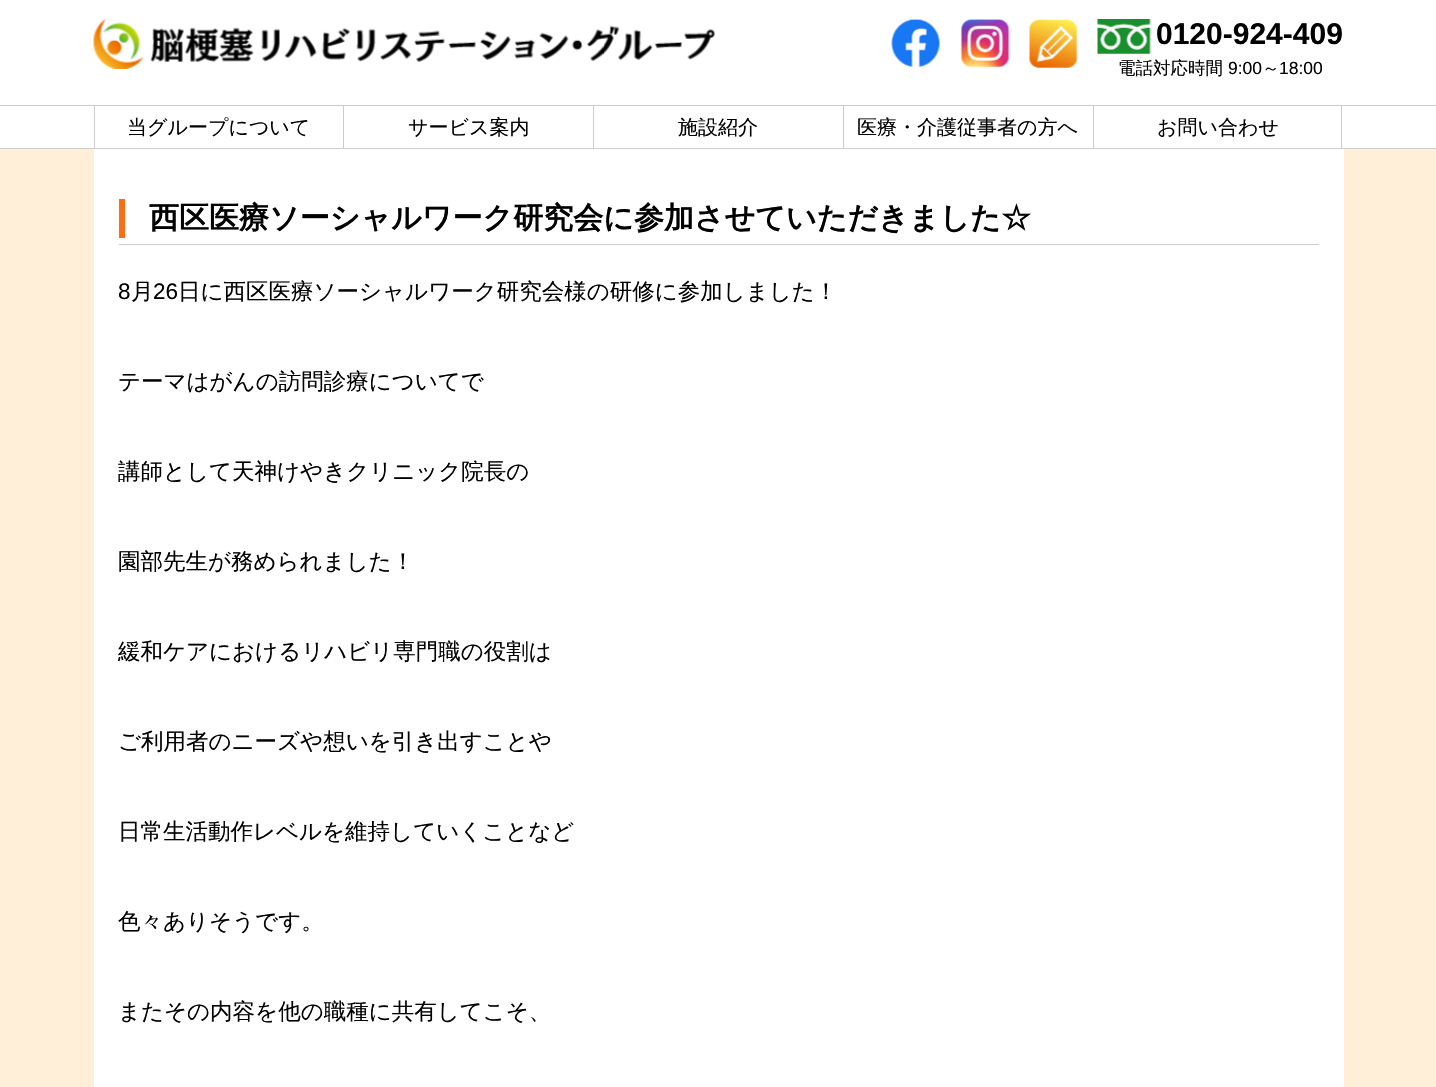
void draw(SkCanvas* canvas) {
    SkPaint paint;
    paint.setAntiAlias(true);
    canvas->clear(0xFFFFFFFF);
    canvas->drawImageRect(SkImages::DeferredFromEncodedData(SkData::MakeFromFileName("img1.png")), SkRect::MakeXYWH(93, 19, 622, 50), SkSamplingOptions());
    canvas->drawImageRect(SkImages::DeferredFromEncodedData(SkData::MakeFromFileName("img2.png")), SkRect::MakeXYWH(891, 19, 49, 48), SkSamplingOptions());
    canvas->drawImageRect(SkImages::DeferredFromEncodedData(SkData::MakeFromFileName("img3.png")), SkRect::MakeXYWH(960, 19, 50, 48), SkSamplingOptions());
    canvas->drawImageRect(SkImages::DeferredFromEncodedData(SkData::MakeFromFileName("img4.png")), SkRect::MakeXYWH(1029, 19, 49, 49), SkSamplingOptions());
    canvas->drawImageRect(SkImages::DeferredFromEncodedData(SkData::MakeFromFileName("img5.png")), SkRect::MakeXYWH(1097, 19, 54, 35), SkSamplingOptions());
    SkFont font1(fontMgr->matchFamilyStyle("Liberation Sans", SkFontStyle::Bold()), 30);
    font1.setSubpixel(true);
    paint.setColor(0xFF000000);
    canvas->drawString("0120-924-409", 1156, 44, font1, paint);
    SkFont font2(fontMgr->matchFamilyStyle("WenQuanYi Zen Hei", SkFontStyle(500, SkFontStyle::kNormal_Width, SkFontStyle::kUpright_Slant)), 17.5f);
    font2.setSubpixel(true);
    canvas->drawString("電話対応時間", 1118, 74, font2, paint);
    SkFont font3(fontMgr->matchFamilyStyle("Liberation Sans", SkFontStyle::Normal()), 17.5f);
    font3.setSubpixel(true);
    canvas->drawString("9:00", 1228, 74, font3, paint);
    canvas->drawString("～", 1262, 74, font2, paint);
    canvas->drawString("18:00", 1279, 74, font3, paint);
    paint.setColor(0xFFCCCCCC);
    canvas->drawRect(SkRect::MakeXYWH(0, 105, 1436, 1), paint);
    canvas->drawRect(SkRect::MakeXYWH(0, 148, 1436, 1), paint);
    canvas->drawRect(SkRect::MakeXYWH(343, 106, 1, 42), paint);
    canvas->drawRect(SkRect::MakeXYWH(94, 106, 1, 42), paint);
    SkFont font4(fontMgr->matchFamilyStyle("WenQuanYi Zen Hei", SkFontStyle(500, SkFontStyle::kNormal_Width, SkFontStyle::kUpright_Slant)), 20);
    font4.setSubpixel(true);
    paint.setColor(0xFF000000);
    canvas->drawString("当グループについて", 127, 134, font4, paint);
    paint.setColor(0xFFCCCCCC);
    canvas->drawRect(SkRect::MakeXYWH(593, 106, 1, 42), paint);
    paint.setColor(0xFF000000);
    canvas->drawString("サービス案内", 408, 134, font4, paint);
    paint.setColor(0xFFCCCCCC);
    canvas->drawRect(SkRect::MakeXYWH(843, 106, 1, 42), paint);
    paint.setColor(0xFF000000);
    canvas->drawString("施設紹介", 678, 134, font4, paint);
    paint.setColor(0xFFCCCCCC);
    canvas->drawRect(SkRect::MakeXYWH(1093, 106, 1, 42), paint);
    paint.setColor(0xFF000000);
    canvas->drawString("医療・介護従事者の方へ", 857, 134, font4, paint);
    paint.setColor(0xFFCCCCCC);
    canvas->drawRect(SkRect::MakeXYWH(1341, 106, 1, 42), paint);
    paint.setColor(0xFF000000);
    canvas->drawString("お問い合わせ", 1157, 134, font4, paint);
    paint.setColor(0xFFFFEFD8);
    canvas->drawRect(SkRect::MakeXYWH(0, 149, 1436, 938), paint);
    paint.setColor(0xFFFFFFFF);
    canvas->drawRect(SkRect::MakeXYWH(94, 149, 1250, 938), paint);
    paint.setColor(0xFFCCCCCC);
    canvas->drawRect(SkRect::MakeXYWH(119, 244, 1200, 1), paint);
    paint.setColor(0xFFFB6E13);
    canvas->drawRect(SkRect::MakeXYWH(119, 199, 6, 39), paint);
    SkFont font5(fontMgr->matchFamilyStyle("WenQuanYi Zen Hei", SkFontStyle::Bold()), 30);
    font5.setSubpixel(true);
    paint.setColor(0xFF000000);
    canvas->drawString("西区医療ソーシャルワーク研究会に参加させていただきました☆", 149, 228, font5, paint);
    SkFont font6(fontMgr->matchFamilyStyle("Liberation Sans", SkFontStyle::Normal()), 22.5f);
    font6.setSubpixel(true);
    canvas->drawString("8", 118, 299, font6, paint);
    SkFont font7(fontMgr->matchFamilyStyle("WenQuanYi Zen Hei", SkFontStyle(500, SkFontStyle::kNormal_Width, SkFontStyle::kUpright_Slant)), 22.5f);
    font7.setSubpixel(true);
    canvas->drawString("月", 131, 299, font7, paint);
    canvas->drawString("26", 153, 299, font6, paint);
    canvas->drawString("日に西区医療ソーシャルワーク研究会様の研修に参加しました！", 178, 299, font7, paint);
    canvas->drawString("テーマはがんの訪問診療についてで", 118, 389, font7, paint);
    canvas->drawString("講師として天神けやきクリニック院長の", 118, 479, font7, paint);
    canvas->drawString("園部先生が務められました！", 118, 569, font7, paint);
    canvas->drawString("緩和ケアにおけるリハビリ専門職の役割は", 118, 659, font7, paint);
    canvas->drawString("ご利用者のニーズや想いを引き出すことや", 118, 749, font7, paint);
    canvas->drawString("日常生活動作レベルを維持していくことなど", 118, 839, font7, paint);
    canvas->drawString("色々ありそうです。", 118, 929, font7, paint);
    canvas->drawString("またその内容を他の職種に共有してこそ、", 118, 1019, font7, paint);
}
